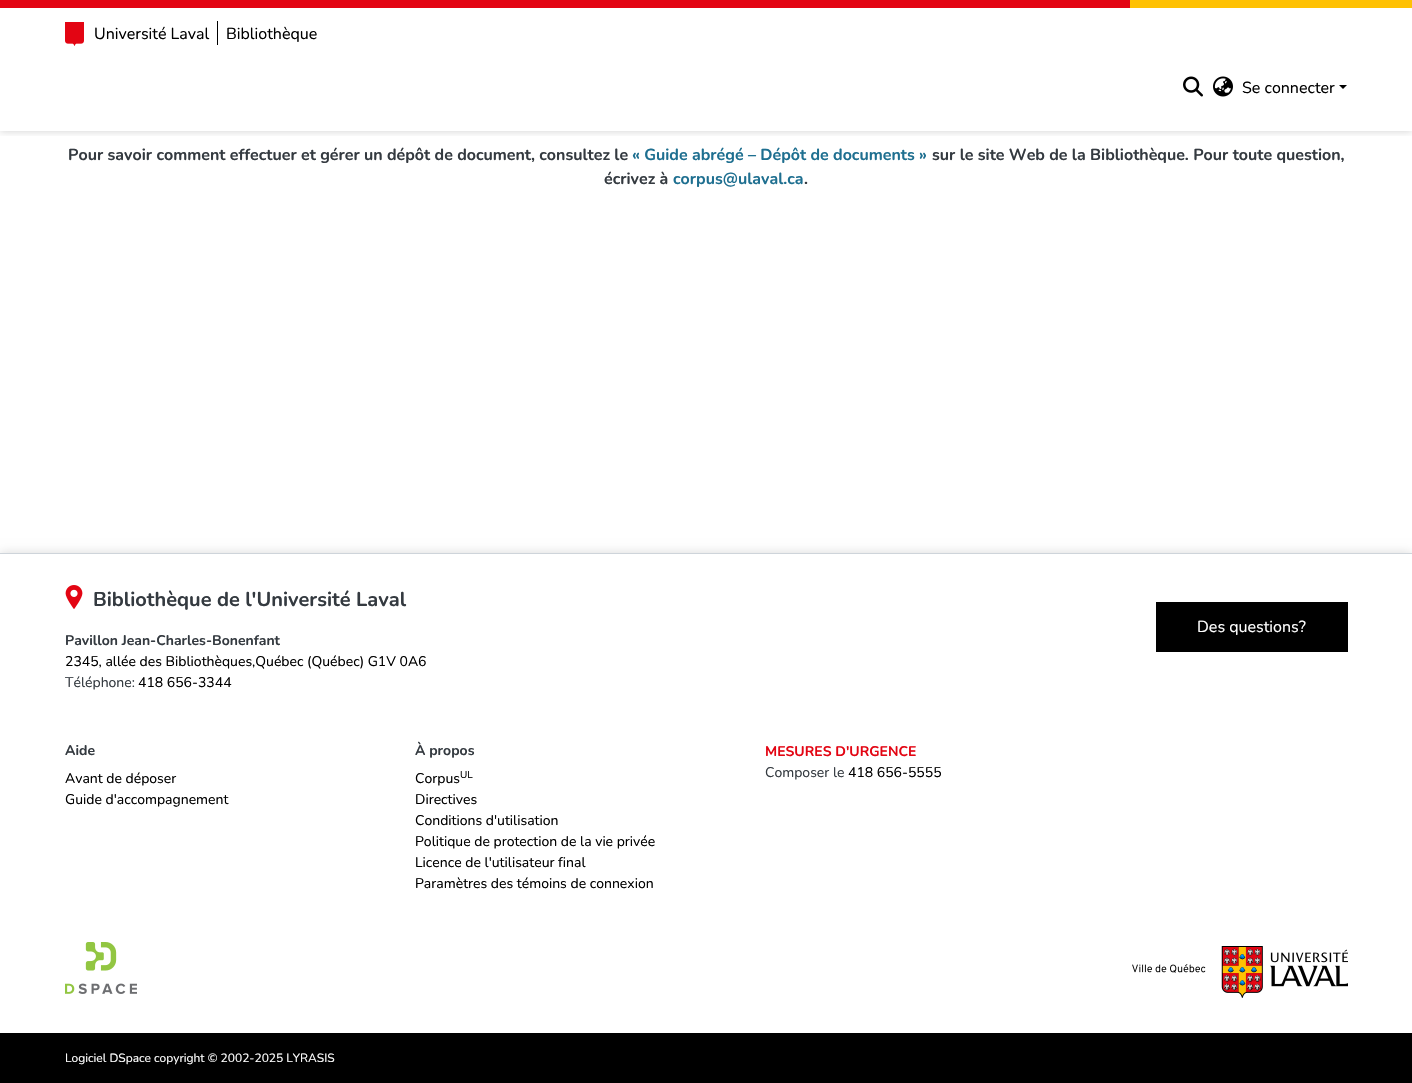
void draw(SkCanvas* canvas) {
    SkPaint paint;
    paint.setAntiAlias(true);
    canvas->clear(0xFFFFFFFF);
    canvas->save();
    canvas->clipRect(SkRect::MakeXYWH(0, 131, 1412, 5));
    paint.setColor(0x26000000);
    paint.setMaskFilter(SkMaskFilter::MakeBlur(kNormal_SkBlurStyle, 3.5f));
    canvas->drawRect(SkRect::MakeXYWH(0, 1, 1412, 131), paint);
    paint.setMaskFilter(nullptr);
    canvas->restore();
    paint.setColor(0xFFE30513);
    canvas->drawRect(SkRect::MakeXYWH(0, 0, 1130, 8), paint);
    paint.setColor(0xFFFFC103);
    canvas->drawRect(SkRect::MakeXYWH(1130, 0, 282, 8), paint);
    canvas->drawImageRect(SkImages::DeferredFromEncodedData(SkData::MakeFromFileName("img1.png")), SkRect::MakeXYWH(65, 22, 19, 24), SkSamplingOptions());
    SkFont font1(fontMgr->matchFamilyStyle("Nunito", SkFontStyle::Normal()), 16);
    font1.setSubpixel(true);
    paint.setColor(0xFF000000);
    canvas->drawString("Université Laval", 94, 39, font1, paint);
    canvas->drawRect(SkRect::MakeXYWH(217, 21, 1, 24), paint);
    canvas->drawString("Bibliothèque", 226, 39, font1, paint);
    canvas->drawImageRect(SkImages::DeferredFromEncodedData(SkData::MakeFromFileName("img2.png")), SkRect::MakeXYWH(1183, 76, 20, 21), SkSamplingOptions());
    canvas->drawImageRect(SkImages::DeferredFromEncodedData(SkData::MakeFromFileName("img3.png")), SkRect::MakeXYWH(1213, 76, 20, 21), SkSamplingOptions());
    canvas->drawString("Se connecter", 1242, 93, font1, paint);
    canvas->drawPath(SkPathBuilder().moveTo(1339, 85).lineTo(1347, 85).lineTo(1343, 89).close().detach(), paint);
    SkFont font2(fontMgr->matchFamilyStyle("Nunito", SkFontStyle::Bold()), 16);
    font2.setSubpixel(true);
    paint.setColor(0xFF343A40);
    canvas->drawString("Pour savoir comment effectuer et gérer un dépôt de document, consultez le", 68, 160, font2, paint);
    paint.setColor(0xFF1E6F90);
    canvas->drawString("« Guide abrégé – Dépôt de documents »", 632, 160, font2, paint);
    paint.setColor(0xFF343A40);
    canvas->drawString("sur le site Web de la Bibliothèque. Pour toute question,", 932, 160, font2, paint);
    canvas->drawString("écrivez à", 604, 184, font2, paint);
    paint.setColor(0xFF1E6F90);
    canvas->drawString("corpus@ulaval.ca", 673, 184, font2, paint);
    paint.setColor(0xFF343A40);
    canvas->drawString(".", 804, 184, font2, paint);
    paint.setColor(0x26000000);
    paint.setMaskFilter(SkMaskFilter::MakeBlur(kNormal_SkBlurStyle, 5));
    canvas->drawRect(SkRect::MakeXYWH(0, 553, 1412, 530), paint);
    paint.setMaskFilter(nullptr);
    paint.setColor(0xFFCED4DA);
    canvas->drawRect(SkRect::MakeXYWH(0, 553, 1412, 1), paint);
    paint.setColor(0xFFFFFFFF);
    canvas->drawRect(SkRect::MakeXYWH(0, 554, 1412, 479), paint);
    canvas->drawImageRect(SkImages::DeferredFromEncodedData(SkData::MakeFromFileName("img4.png")), SkRect::MakeXYWH(65, 585, 18, 24), SkSamplingOptions());
    SkFont font3(fontMgr->matchFamilyStyle("Nunito", SkFontStyle::Bold()), 20);
    font3.setSubpixel(true);
    paint.setColor(0xFF343A40);
    canvas->drawString("Bibliothèque de l'Université Laval", 93, 606, font3, paint);
    SkFont font4(fontMgr->matchFamilyStyle("Nunito", SkFontStyle::Bold()), 14);
    font4.setSubpixel(true);
    canvas->drawString("Pavillon Jean-Charles-Bonenfant", 65, 645, font4, paint);
    SkFont font5(fontMgr->matchFamilyStyle("Nunito", SkFontStyle::Normal()), 14);
    font5.setSubpixel(true);
    paint.setColor(0xFF000000);
    canvas->drawString("2345, allée des Bibliothèques,Québec (Québec) G1V 0A6", 65, 666, font5, paint);
    paint.setColor(0xFF343A40);
    canvas->drawString("Téléphone:", 65, 687, font5, paint);
    paint.setColor(0xFF000000);
    canvas->drawString("418 656-3344", 138, 687, font5, paint);
    canvas->drawRect(SkRect::MakeXYWH(1156, 602, 192, 50), paint);
    paint.setColor(0xFFFFFFFF);
    canvas->drawString("Des questions?", 1197, 632, font1, paint);
    paint.setColor(0xFF343A40);
    canvas->drawString("Aide", 65, 755, font4, paint);
    paint.setColor(0xFF000000);
    canvas->drawString("Avant de déposer", 65, 783, font5, paint);
    canvas->drawString("Guide d'accompagnement", 65, 804, font5, paint);
    paint.setColor(0xFF343A40);
    canvas->drawString("À propos", 415, 755, font4, paint);
    paint.setColor(0xFF000000);
    canvas->drawString("Corpus", 415, 783, font5, paint);
    SkFont font6(fontMgr->matchFamilyStyle("Nunito", SkFontStyle::Normal()), 10);
    font6.setSubpixel(true);
    canvas->drawString("UL", 460, 778, font6, paint);
    canvas->drawString("Directives", 415, 804, font5, paint);
    canvas->drawString("Conditions d'utilisation", 415, 825, font5, paint);
    canvas->drawString("Politique de protection de la vie privée", 415, 846, font5, paint);
    canvas->drawString("Licence de l'utilisateur final", 415, 867, font5, paint);
    canvas->drawString("Paramètres des témoins de connexion", 415, 888, font5, paint);
    paint.setColor(0xFFE30513);
    canvas->drawString("MESURES D'URGENCE", 765, 756, font4, paint);
    paint.setColor(0xFF343A40);
    canvas->drawString("Composer le", 765, 777, font5, paint);
    paint.setColor(0xFF000000);
    canvas->drawString("418 656-5555", 848, 777, font5, paint);
    canvas->drawImageRect(SkImages::DeferredFromEncodedData(SkData::MakeFromFileName("img5.png")), SkRect::MakeXYWH(65, 942, 72, 52), SkSamplingOptions());
    canvas->drawImageRect(SkImages::DeferredFromEncodedData(SkData::MakeFromFileName("img6.png")), SkRect::MakeXYWH(1132, 946, 216, 52), SkSamplingOptions());
    canvas->drawRect(SkRect::MakeXYWH(0, 1033, 1412, 50), paint);
    SkFont font7(fontMgr->matchFamilyStyle("Nunito", SkFontStyle::Normal()), 12);
    font7.setSubpixel(true);
    paint.setColor(0xFFFFFFFF);
    canvas->drawString("Logiciel DSpace copyright © 2002-2025 LYRASIS", 65, 1062, font7, paint);
}
